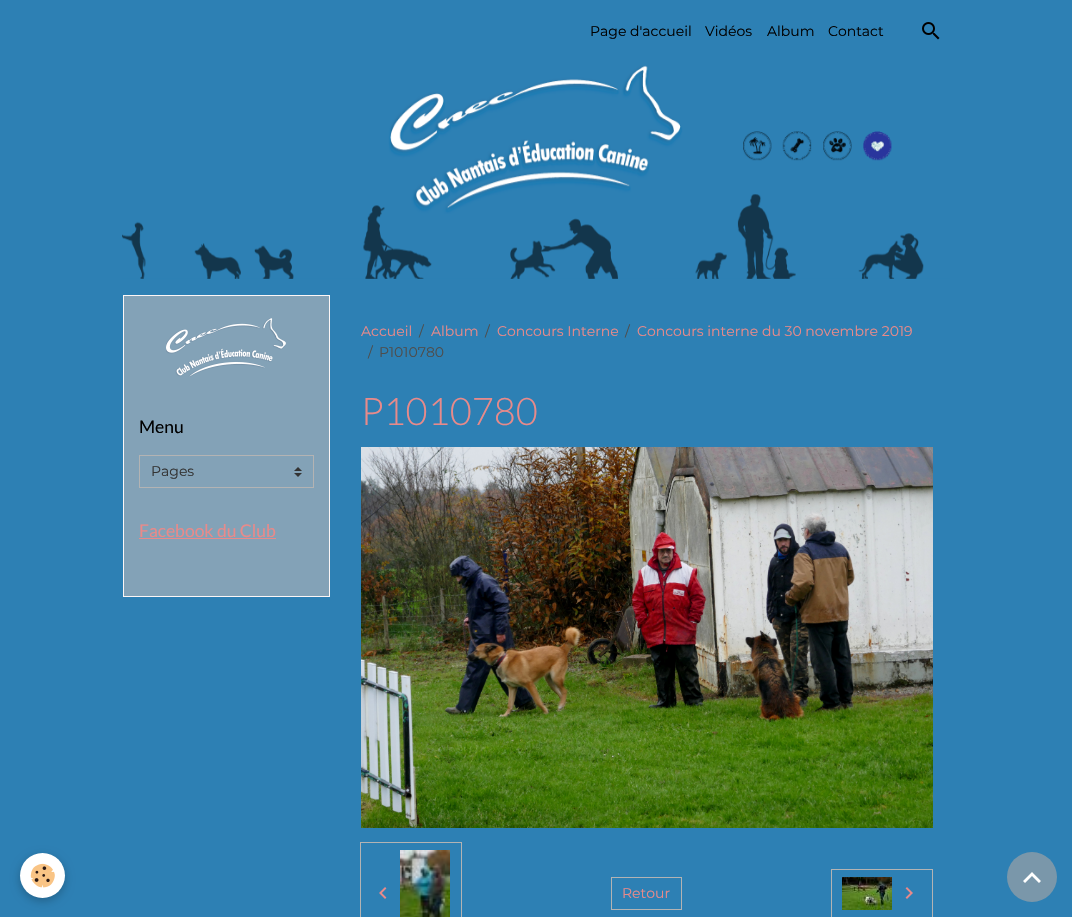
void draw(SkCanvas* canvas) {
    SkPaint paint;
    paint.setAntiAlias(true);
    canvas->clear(0xFF2D80B4);
    SkFont font1(fontMgr->matchFamilyStyle("Montserrat", SkFontStyle::Normal()), 14);
    font1.setSubpixel(true);
    paint.setColor(0xFF000000);
    canvas->drawString("Page d'accueil", 590, 36, font1, paint);
    canvas->drawString("Vidéos", 705, 36, font1, paint);
    canvas->drawString("Album", 767, 36, font1, paint);
    canvas->drawString("Contact", 828, 36, font1, paint);
    canvas->drawImageRect(SkImages::DeferredFromEncodedData(SkData::MakeFromFileName("img1.png")), SkRect::MakeXYWH(922, 22, 18, 18), SkSamplingOptions());
    canvas->drawImageRect(SkImages::DeferredFromEncodedData(SkData::MakeFromFileName("img2.png")), SkRect::MakeXYWH(122, 63, 828, 216), SkSamplingOptions());
    paint.setColor(0x3D000000);
    paint.setMaskFilter(SkMaskFilter::MakeBlur(kNormal_SkBlurStyle, 5));
    canvas->drawRoundRect(SkRect::MakeXYWH(20, 856, 45, 45), 22.5f, 22.5f, paint);
    paint.setMaskFilter(nullptr);
    paint.setColor(0xFFFFFFFF);
    canvas->drawCircle(42.5f, 875.5f, 22.5f, paint);
    canvas->drawImageRect(SkImages::DeferredFromEncodedData(SkData::MakeFromFileName("img3.png")), SkRect::MakeXYWH(30, 863, 25, 25), SkSamplingOptions());
    paint.setColor(0xFF83A2B7);
    canvas->drawRect(SkRect::MakeXYWH(123.5f, 295.5f, 206, 301), paint);
    paint.setStyle(SkPaint::kStroke_Style);
    paint.setStrokeWidth(1);
    paint.setColor(0xFFFCF6F6);
    canvas->drawRect(SkRect::MakeXYWH(123.5f, 295.5f, 206, 301), paint);
    canvas->drawImageRect(SkImages::DeferredFromEncodedData(SkData::MakeFromFileName("img4.png")), SkRect::MakeXYWH(166, 318, 120, 59), SkSamplingOptions());
    SkFont font2(fontMgr->matchFamilyStyle("Lato", SkFontStyle::Normal()), 17.5f);
    font2.setSubpixel(true);
    paint.setStyle(SkPaint::kFill_Style);
    paint.setColor(0xFF000000);
    canvas->drawString("Menu", 139, 433, font2, paint);
    canvas->drawImageRect(SkImages::DeferredFromEncodedData(SkData::MakeFromFileName("img5.png")), SkRect::MakeXYWH(294, 467, 8, 10), SkSamplingOptions());
    paint.setStyle(SkPaint::kStroke_Style);
    paint.setColor(0xFFB3B3B3);
    canvas->drawRect(SkRect::MakeXYWH(139.5f, 455.5f, 174, 32), paint);
    paint.setStyle(SkPaint::kFill_Style);
    paint.setColor(0xFF333333);
    canvas->drawString("Pages", 151, 476, font1, paint);
    paint.setColor(0xFFE88A8A);
    canvas->drawString("Facebook du Club", 139, 537, font2, paint);
    canvas->drawRect(SkRect::MakeXYWH(139, 538, 137, 1), paint);
    canvas->drawString("Accueil", 361, 336, font1, paint);
    paint.setColor(0xFF4D4D4D);
    canvas->drawString("/", 419, 336, font1, paint);
    paint.setColor(0xFFE88A8A);
    canvas->drawString("Album", 431, 336, font1, paint);
    paint.setColor(0xFF4D4D4D);
    canvas->drawString("/", 485, 336, font1, paint);
    paint.setColor(0xFFE88A8A);
    canvas->drawString("Concours Interne", 497, 336, font1, paint);
    paint.setColor(0xFF4D4D4D);
    canvas->drawString("/", 625, 336, font1, paint);
    paint.setColor(0xFFE88A8A);
    canvas->drawString("Concours interne du 30 novembre 2019", 637, 336, font1, paint);
    paint.setColor(0xFF4D4D4D);
    canvas->drawString("/", 368, 357, font1, paint);
    canvas->drawString("P1010780", 379, 357, font1, paint);
    SkFont font3(fontMgr->matchFamilyStyle("Lato", SkFontStyle(300, SkFontStyle::kNormal_Width, SkFontStyle::kUpright_Slant)), 38);
    font3.setSubpixel(true);
    paint.setColor(0xFFE88A8A);
    canvas->drawString("P1010780", 361, 425, font3, paint);
    canvas->drawImageRect(SkImages::DeferredFromEncodedData(SkData::MakeFromFileName("img6.png")), SkRect::MakeXYWH(361, 447, 572, 381), SkSamplingOptions());
    paint.setStyle(SkPaint::kStroke_Style);
    paint.setColor(0xFFB3B3B3);
    canvas->drawRect(SkRect::MakeXYWH(360.5f, 842.5f, 101, 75), paint);
    canvas->drawImageRect(SkImages::DeferredFromEncodedData(SkData::MakeFromFileName("img7.png")), SkRect::MakeXYWH(379, 887, 8, 12), SkSamplingOptions());
    canvas->drawImageRect(SkImages::DeferredFromEncodedData(SkData::MakeFromFileName("img8.png")), SkRect::MakeXYWH(400, 850, 50, 67), SkSamplingOptions());
    canvas->drawRect(SkRect::MakeXYWH(611.5f, 877.5f, 70, 32), paint);
    paint.setStyle(SkPaint::kFill_Style);
    paint.setColor(0xFFE88A8A);
    canvas->drawString("Retour", 622, 898, font1, paint);
    paint.setStyle(SkPaint::kStroke_Style);
    paint.setColor(0xFFB3B3B3);
    canvas->drawRect(SkRect::MakeXYWH(831.5f, 869.5f, 101, 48), paint);
    canvas->drawImageRect(SkImages::DeferredFromEncodedData(SkData::MakeFromFileName("img9.png")), SkRect::MakeXYWH(842, 877, 50, 33), SkSamplingOptions());
    canvas->drawImageRect(SkImages::DeferredFromEncodedData(SkData::MakeFromFileName("img10.png")), SkRect::MakeXYWH(905, 887, 8, 12), SkSamplingOptions());
    paint.setStyle(SkPaint::kFill_Style);
    paint.setColor(0xFF7A97AA);
    canvas->drawCircle(1032, 877, 25, paint);
    paint.setColor(0xFFFFFFFF);
    canvas->drawPath(SkPathBuilder().moveTo(1032, 872).lineTo(1041, 881).lineTo(1039, 883).lineTo(1032, 876).lineTo(1025, 883).lineTo(1023, 881).close().detach(), paint);
}
